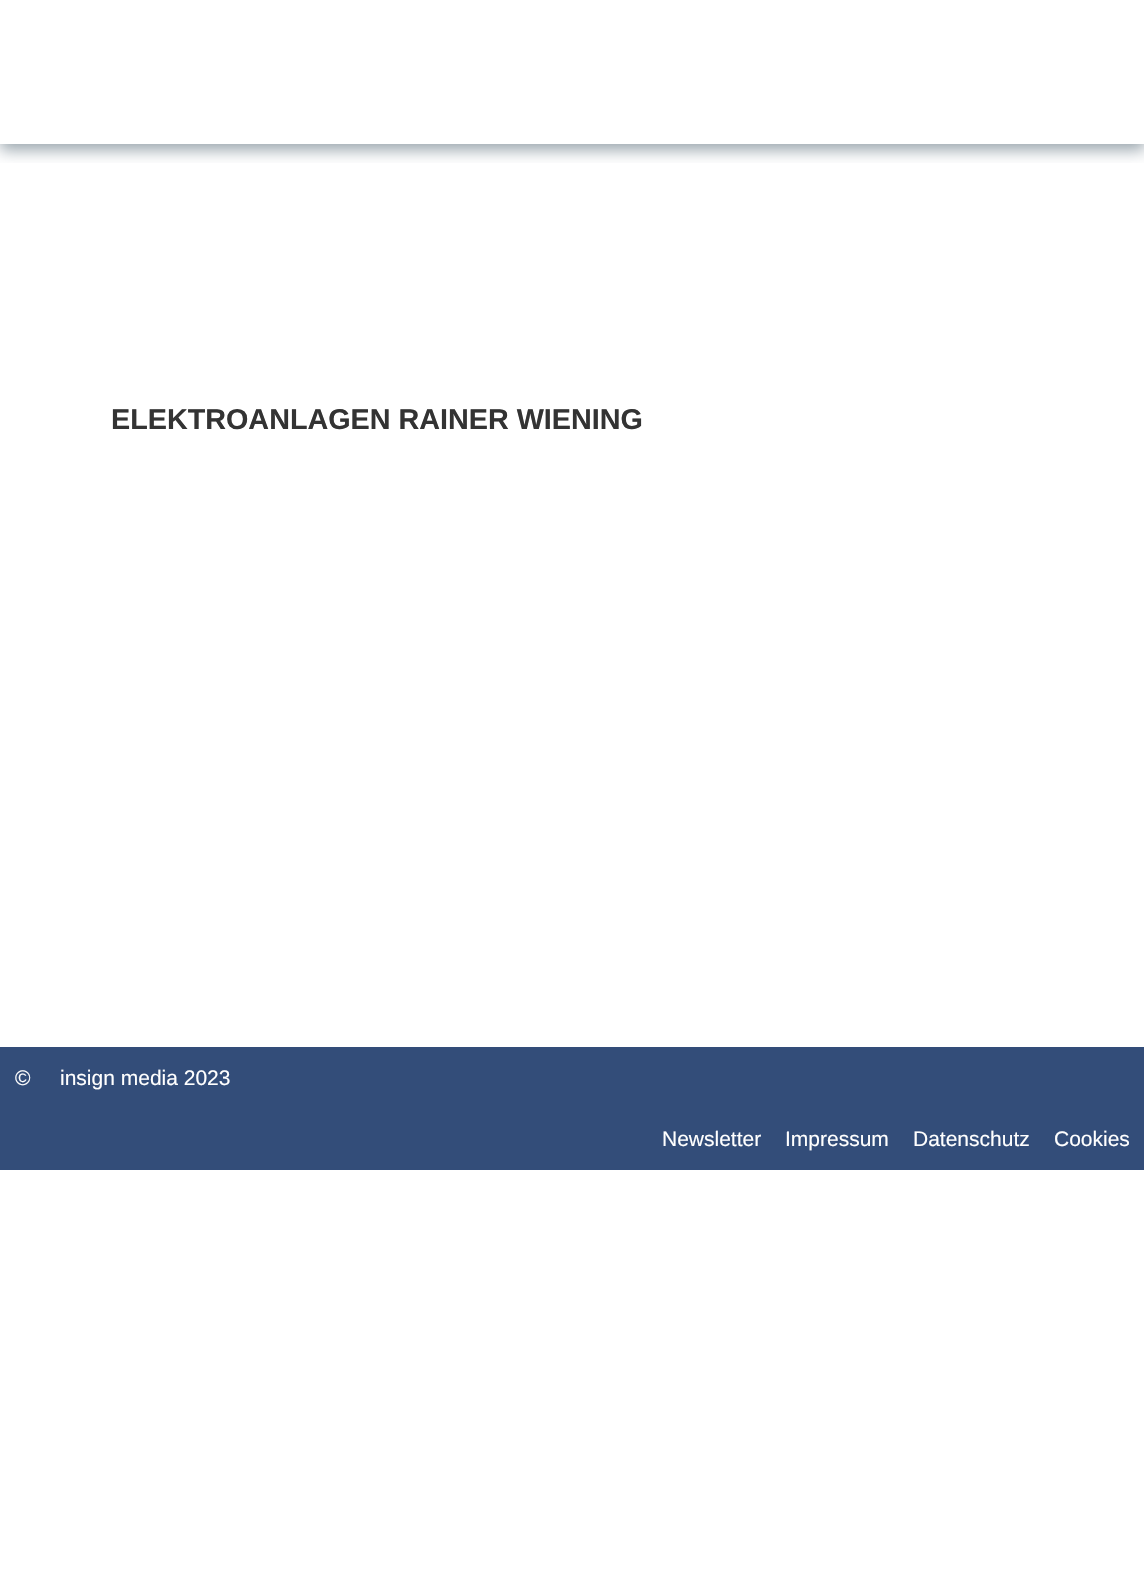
void draw(SkCanvas* canvas) {
    SkPaint paint;
    paint.setAntiAlias(true);
    canvas->clear(0xFFFFFFFF);
    canvas->save();
    canvas->clipRect(SkRect::MakeXYWH(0, 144, 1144, 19));
    paint.setColor(0x802F4858);
    paint.setMaskFilter(SkMaskFilter::MakeBlur(kNormal_SkBlurStyle, 7.5f));
    canvas->drawRect(SkRect::MakeXYWH(0, 6, 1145, 144), paint);
    paint.setMaskFilter(nullptr);
    canvas->restore();
    SkFont font1(fontMgr->matchFamilyStyle("Liberation Sans", SkFontStyle::Bold()), 28.75f);
    font1.setSubpixel(true);
    paint.setColor(0xFF333333);
    canvas->drawString("ELEKTROANLAGEN RAINER WIENING", 111, 429, font1, paint);
    paint.setColor(0xFF334D79);
    canvas->drawRect(SkRect::MakeXYWH(0, 1047, 1144, 123), paint);
    SkFont font2(fontMgr->matchFamilyStyle("Liberation Sans", SkFontStyle::Normal()), 21);
    font2.setSubpixel(true);
    paint.setColor(0xFFFFFFFF);
    canvas->drawString("©", 15, 1085, font2, paint);
    canvas->drawString("insign media 2023", 60, 1085, font2, paint);
    canvas->drawString("Newsletter", 662, 1146, font2, paint);
    canvas->drawString("Impressum", 785, 1146, font2, paint);
    canvas->drawString("Datenschutz", 913, 1146, font2, paint);
    canvas->drawString("Cookies", 1054, 1146, font2, paint);
}
